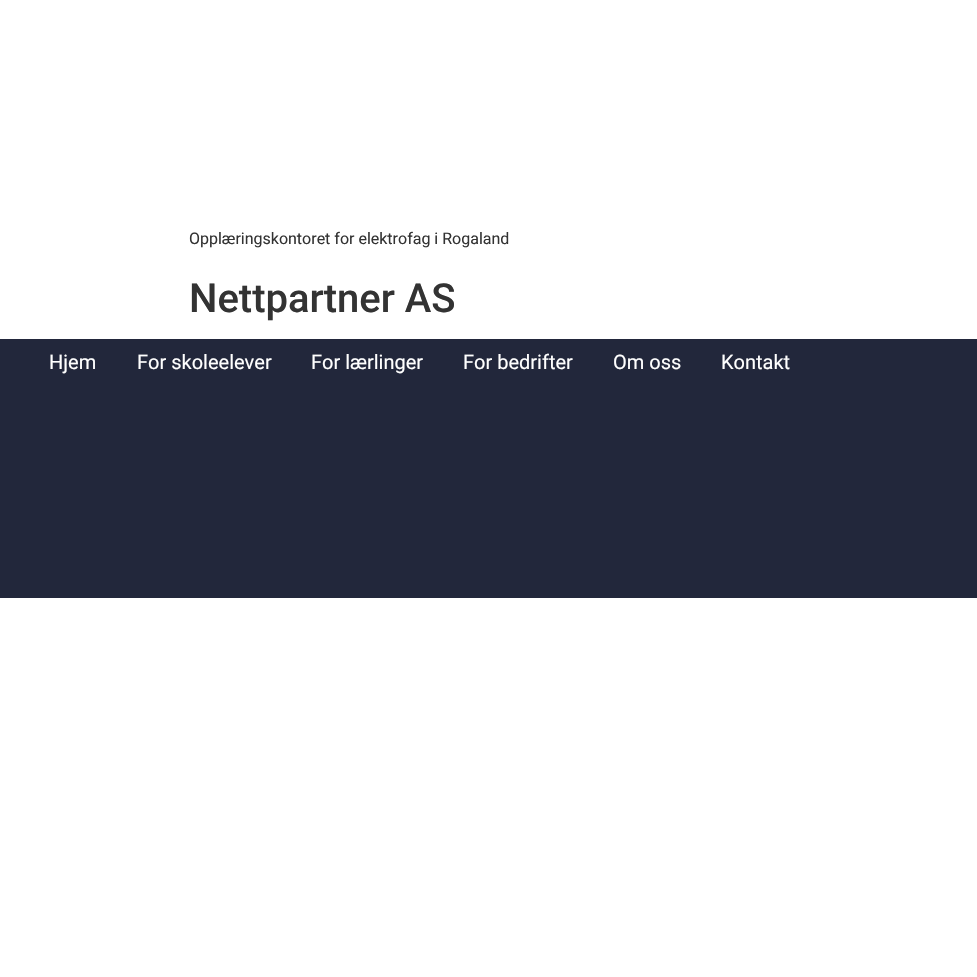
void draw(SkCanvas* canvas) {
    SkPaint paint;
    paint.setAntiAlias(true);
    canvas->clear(0xFFFFFFFF);
    SkFont font1(fontMgr->matchFamilyStyle("Roboto", SkFontStyle::Normal()), 16);
    font1.setSubpixel(true);
    paint.setColor(0xFF333333);
    canvas->drawString("Opplæringskontoret for elektrofag i Rogaland", 189, 244, font1, paint);
    SkFont font2(fontMgr->matchFamilyStyle("Roboto", SkFontStyle(500, SkFontStyle::kNormal_Width, SkFontStyle::kUpright_Slant)), 40);
    font2.setSubpixel(true);
    canvas->drawString("Nettpartner AS", 189, 312, font2, paint);
    paint.setColor(0xFF22273B);
    canvas->drawRect(SkRect::MakeXYWH(0, 339, 977, 259), paint);
    SkFont font3(fontMgr->matchFamilyStyle("Roboto", SkFontStyle::Normal()), 20);
    font3.setSubpixel(true);
    paint.setColor(0xFFFFFFFF);
    canvas->drawString("Hjem", 49, 369, font3, paint);
    canvas->drawString("For skoleelever", 137, 369, font3, paint);
    canvas->drawString("For lærlinger", 311, 369, font3, paint);
    canvas->drawString("For bedrifter", 463, 369, font3, paint);
    canvas->drawString("Om oss", 613, 369, font3, paint);
    canvas->drawString("Kontakt", 721, 369, font3, paint);
}
